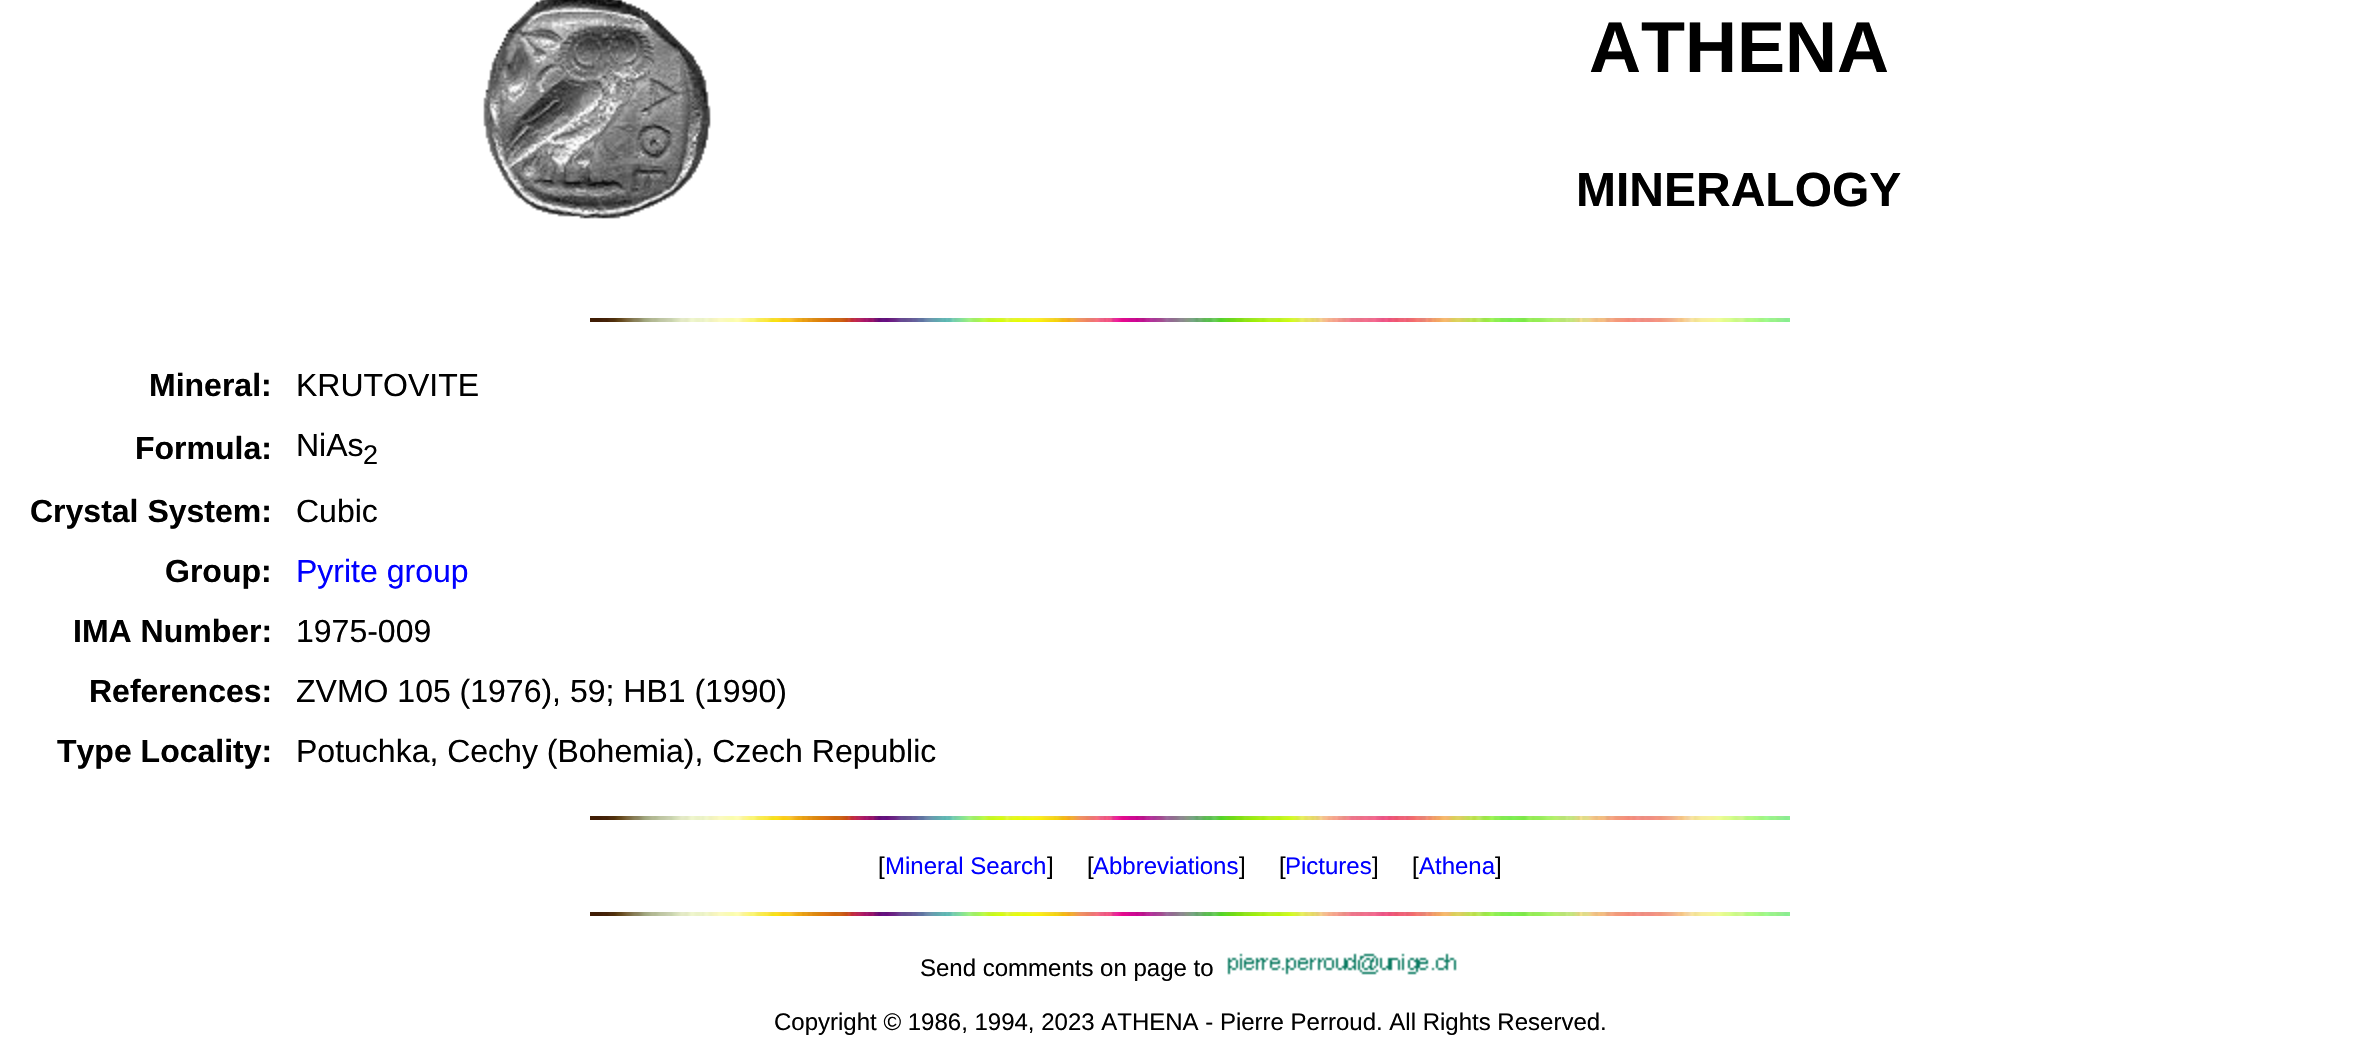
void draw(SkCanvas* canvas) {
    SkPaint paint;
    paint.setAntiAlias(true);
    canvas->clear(0xFFFFFFFF);
    canvas->drawImageRect(SkImages::DeferredFromEncodedData(SkData::MakeFromFileName("img1.png")), SkRect::MakeXYWH(483, 0, 228, 219), SkSamplingOptions());
    SkFont font1(fontMgr->matchFamilyStyle("Liberation Sans", SkFontStyle::Bold()), 72);
    font1.setSubpixel(true);
    paint.setColor(0xFF000000);
    canvas->drawString("ATHENA", 1589, 72, font1, paint);
    SkFont font2(fontMgr->matchFamilyStyle("Liberation Sans", SkFontStyle::Bold()), 48);
    font2.setSubpixel(true);
    canvas->drawString("MINERALOGY", 1576, 206, font2, paint);
    canvas->drawImageRect(SkImages::DeferredFromEncodedData(SkData::MakeFromFileName("img2.png")), SkRect::MakeXYWH(590, 318, 1200, 4), SkSamplingOptions());
    SkFont font3(fontMgr->matchFamilyStyle("Liberation Sans", SkFontStyle::Bold()), 32);
    font3.setSubpixel(true);
    canvas->drawString("Mineral:", 149, 396, font3, paint);
    SkFont font4(fontMgr->matchFamilyStyle("Liberation Sans", SkFontStyle::Normal()), 32);
    font4.setSubpixel(true);
    canvas->drawString("KRUTOVITE", 296, 396, font4, paint);
    canvas->drawString("Formula:", 135, 459, font3, paint);
    canvas->drawString("NiAs", 296, 456, font4, paint);
    SkFont font5(fontMgr->matchFamilyStyle("Liberation Sans", SkFontStyle::Normal()), 27);
    font5.setSubpixel(true);
    canvas->drawString("2", 363, 464, font5, paint);
    canvas->drawString("Crystal System:", 30, 522, font3, paint);
    canvas->drawString("Cubic", 296, 522, font4, paint);
    canvas->drawString("Group:", 165, 582, font3, paint);
    paint.setColor(0xFF0000FF);
    canvas->drawString("Pyrite group", 296, 582, font4, paint);
    paint.setColor(0xFF000000);
    canvas->drawString("IMA Number:", 73, 642, font3, paint);
    canvas->drawString("1975-009", 296, 642, font4, paint);
    canvas->drawString("References:", 89, 702, font3, paint);
    canvas->drawString("ZVMO 105 (1976), 59; HB1 (1990)", 296, 702, font4, paint);
    canvas->drawString("Type Locality:", 57, 762, font3, paint);
    canvas->drawString("Potuchka, Cechy (Bohemia), Czech Republic", 296, 762, font4, paint);
    canvas->drawImageRect(SkImages::DeferredFromEncodedData(SkData::MakeFromFileName("img2.png")), SkRect::MakeXYWH(590, 816, 1200, 4), SkSamplingOptions());
    SkFont font6(fontMgr->matchFamilyStyle("Liberation Sans", SkFontStyle::Normal()), 24);
    font6.setSubpixel(true);
    canvas->drawString("[", 878, 874, font6, paint);
    paint.setColor(0xFF0000FF);
    canvas->drawString("Mineral Search", 885, 874, font6, paint);
    paint.setColor(0xFF000000);
    canvas->drawString("]     [", 1047, 874, font6, paint);
    paint.setColor(0xFF0000FF);
    canvas->drawString("Abbreviations", 1093, 874, font6, paint);
    paint.setColor(0xFF000000);
    canvas->drawString("]     [", 1239, 874, font6, paint);
    paint.setColor(0xFF0000FF);
    canvas->drawString("Pictures", 1285, 874, font6, paint);
    paint.setColor(0xFF000000);
    canvas->drawString("]     [", 1372, 874, font6, paint);
    paint.setColor(0xFF0000FF);
    canvas->drawString("Athena", 1419, 874, font6, paint);
    paint.setColor(0xFF000000);
    canvas->drawString("]", 1495, 874, font6, paint);
    canvas->drawImageRect(SkImages::DeferredFromEncodedData(SkData::MakeFromFileName("img2.png")), SkRect::MakeXYWH(590, 912, 1200, 4), SkSamplingOptions());
    canvas->drawString("Send comments on page to", 920, 976, font6, paint);
    canvas->drawImageRect(SkImages::DeferredFromEncodedData(SkData::MakeFromFileName("img3.png")), SkRect::MakeXYWH(1227, 953, 230, 22), SkSamplingOptions());
    canvas->drawString("Copyright © 1986, 1994, 2023 ATHENA - Pierre Perroud. All Rights Reserved.", 774, 1030, font6, paint);
}
